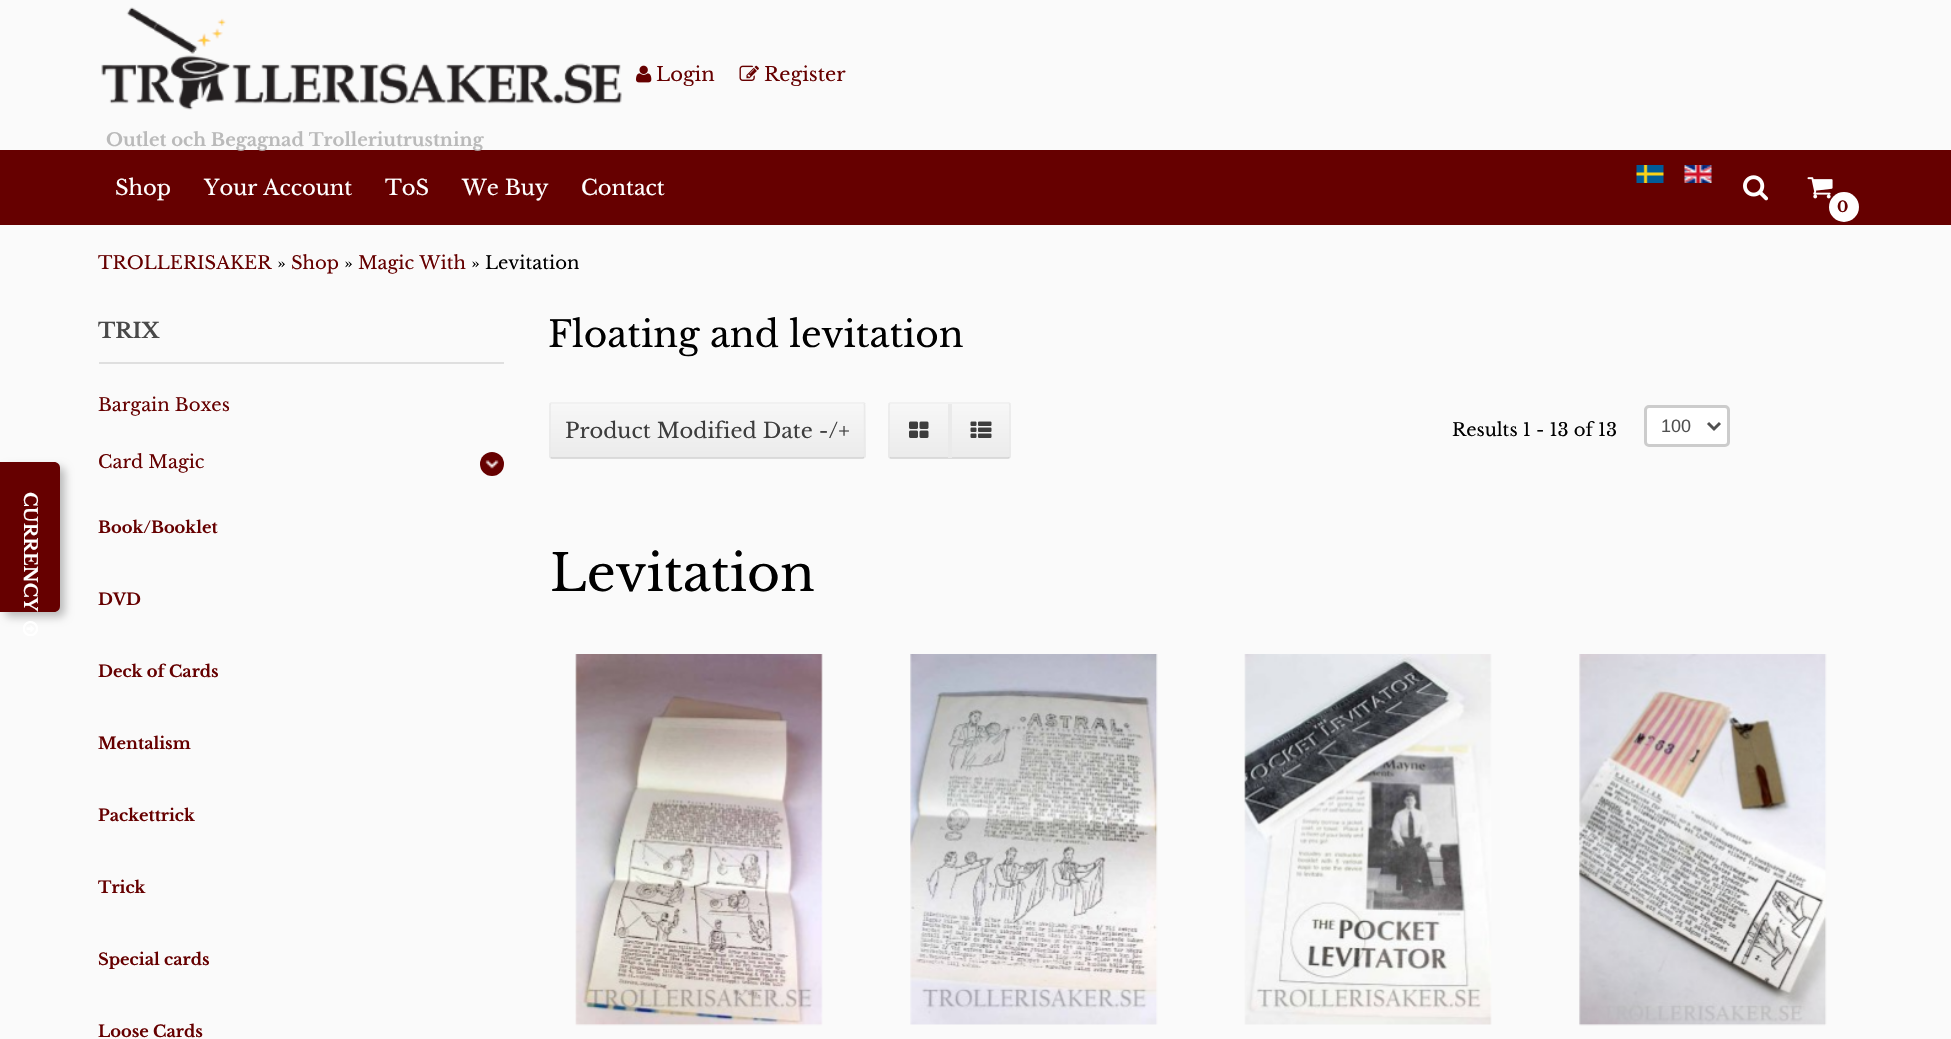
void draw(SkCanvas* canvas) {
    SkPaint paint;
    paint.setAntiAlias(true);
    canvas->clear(0xFFFAFAFA);
    paint.setColor(0x40000000);
    paint.setMaskFilter(SkMaskFilter::MakeBlur(kNormal_SkBlurStyle, 4));
    canvas->drawRoundRect(SkRect::MakeXYWH(5, 467, 60, 150), 6, 6, paint);
    paint.setMaskFilter(nullptr);
    paint.setColor(0xFF660000);
    canvas->drawPath(SkPathBuilder().moveTo(0, 462).lineTo(54, 462).cubicTo(57.5f, 462, 60, 464.5f, 60, 468).lineTo(60, 606).cubicTo(60, 609.5f, 57.5f, 612, 54, 612).lineTo(0, 612).close().detach(), paint);
    SkFont font1(fontMgr->matchFamilyStyle("Libre Baskerville", SkFontStyle::Bold()), 18);
    font1.setSubpixel(true);
    paint.setColor(0xFFFFFFFF);
    canvas->save();
    canvas->rotate(90, 24, 492);
    canvas->drawString("CURRENCY", 24, 492, font1, paint);
    canvas->restore();
    canvas->drawImageRect(SkImages::DeferredFromEncodedData(SkData::MakeFromFileName("img1.png")), SkRect::MakeXYWH(23, 621, 15, 15), SkSamplingOptions());
    canvas->drawImageRect(SkImages::DeferredFromEncodedData(SkData::MakeFromFileName("img2.png")), SkRect::MakeXYWH(636, 65, 16, 18), SkSamplingOptions());
    SkFont font2(fontMgr->matchFamilyStyle("Libre Baskerville", SkFontStyle::Normal()), 19.5f);
    font2.setSubpixel(true);
    paint.setColor(0xFF660000);
    canvas->drawString("Login", 656, 81, font2, paint);
    canvas->drawImageRect(SkImages::DeferredFromEncodedData(SkData::MakeFromFileName("img3.png")), SkRect::MakeXYWH(739, 65, 20, 16), SkSamplingOptions());
    canvas->drawString("Register", 764, 81, font2, paint);
    canvas->drawImageRect(SkImages::DeferredFromEncodedData(SkData::MakeFromFileName("img4.png")), SkRect::MakeXYWH(101, 7, 521, 103), SkSamplingOptions());
    canvas->drawRect(SkRect::MakeXYWH(0, 150, 1951, 75), paint);
    paint.setColor(0xFFBABABA);
    canvas->drawString("Outlet och Begagnad Trolleriutrustning", 106, 146, font1, paint);
    SkFont font3(fontMgr->matchFamilyStyle("Libre Baskerville", SkFontStyle::Normal()), 21);
    font3.setSubpixel(true);
    paint.setColor(0xFFFFFFFF);
    canvas->drawString("Shop", 115, 195, font3, paint);
    canvas->drawString("Your Account", 204, 195, font3, paint);
    canvas->drawString("ToS", 385, 195, font3, paint);
    canvas->drawString("We Buy", 462, 195, font3, paint);
    canvas->drawString("Contact", 581, 195, font3, paint);
    canvas->drawImageRect(SkImages::DeferredFromEncodedData(SkData::MakeFromFileName("img5.png")), SkRect::MakeXYWH(1636, 165, 28, 18), SkSamplingOptions());
    canvas->drawImageRect(SkImages::DeferredFromEncodedData(SkData::MakeFromFileName("img6.png")), SkRect::MakeXYWH(1684, 165, 28, 18), SkSamplingOptions());
    canvas->drawImageRect(SkImages::DeferredFromEncodedData(SkData::MakeFromFileName("img7.png")), SkRect::MakeXYWH(1743, 175, 26, 26), SkSamplingOptions());
    canvas->drawImageRect(SkImages::DeferredFromEncodedData(SkData::MakeFromFileName("img8.png")), SkRect::MakeXYWH(1807, 177, 26, 22), SkSamplingOptions());
    canvas->drawCircle(1844, 207, 15, paint);
    SkFont font4(fontMgr->matchFamilyStyle("Libre Baskerville", SkFontStyle::Bold()), 15);
    font4.setSubpixel(true);
    paint.setColor(0xFF660000);
    canvas->drawString("0", 1837, 212, font4, paint);
    SkFont font5(fontMgr->matchFamilyStyle("Libre Baskerville", SkFontStyle::Normal()), 18);
    font5.setSubpixel(true);
    canvas->drawString("TROLLERISAKER", 98, 269, font5, paint);
    paint.setColor(0xFF000000);
    canvas->drawString("»", 277, 269, font5, paint);
    paint.setColor(0xFF660000);
    canvas->drawString("Shop", 291, 269, font5, paint);
    paint.setColor(0xFF000000);
    canvas->drawString("»", 344, 269, font5, paint);
    paint.setColor(0xFF660000);
    canvas->drawString("Magic With", 358, 269, font5, paint);
    paint.setColor(0xFF000000);
    canvas->drawString("» Levitation", 471, 269, font5, paint);
    paint.setColor(0xFFDFDFDF);
    canvas->drawRect(SkRect::MakeXYWH(99, 362, 405, 2), paint);
    SkFont font6(fontMgr->matchFamilyStyle("Libre Baskerville", SkFontStyle::Bold()), 21);
    font6.setSubpixel(true);
    paint.setColor(0xFF494949);
    canvas->drawString("TRIX", 98, 338, font6, paint);
    paint.setColor(0xFF660000);
    canvas->drawString("Bargain Boxes", 98, 411, font5, paint);
    canvas->drawString("Card Magic", 98, 468, font5, paint);
    canvas->drawCircle(492, 464, 12, paint);
    canvas->drawImageRect(SkImages::DeferredFromEncodedData(SkData::MakeFromFileName("img9.png")), SkRect::MakeXYWH(485, 460, 14, 9), SkSamplingOptions());
    SkFont font7(fontMgr->matchFamilyStyle("Libre Baskerville", SkFontStyle::Bold()), 16.25f);
    font7.setSubpixel(true);
    canvas->drawString("Book/Booklet", 98, 533, font7, paint);
    canvas->drawString("DVD", 98, 605, font7, paint);
    canvas->drawString("Deck of Cards", 98, 677, font7, paint);
    canvas->drawString("Mentalism", 98, 749, font7, paint);
    canvas->drawString("Packettrick", 98, 821, font7, paint);
    canvas->drawString("Trick", 98, 893, font7, paint);
    canvas->drawString("Special cards", 98, 965, font7, paint);
    canvas->drawString("Loose Cards", 98, 1037, font7, paint);
    SkFont font8(fontMgr->matchFamilyStyle("Libre Baskerville", SkFontStyle::Normal()), 36);
    font8.setSubpixel(true);
    paint.setColor(0xFF000000);
    canvas->drawString("Floating and levitation", 548, 347, font8, paint);
    canvas->save();
    canvas->clipPath(SkPathBuilder().moveTo(552, 402).lineTo(863, 402).cubicTo(864.5f, 402, 866, 403.5f, 866, 405).lineTo(866, 456).cubicTo(866, 457.5f, 864.5f, 459, 863, 459).lineTo(552, 459).cubicTo(550.5f, 459, 549, 457.5f, 549, 456).lineTo(549, 405).cubicTo(549, 403.5f, 550.5f, 402, 552, 402).close().detach(), true);
    {
        const SkColor colors[] = {0xFFF7F7F7, 0xFFEBEBEB};
        const float stops[] = {0, 1};
        const SkPoint ends[] = {{707, 350}, {707, 404}};
        paint.setShader(SkGradientShader::MakeLinear(ends, colors, stops, 2, SkTileMode::kClamp));
        paint.setAlpha(255);
    }
    canvas->drawRect(SkRect::MakeXYWH(549, 402, 317, 2), paint);
    {
        const SkColor colors[] = {0xFFF7F7F7, 0xFFEBEBEB};
        const float stops[] = {0, 1};
        const SkPoint ends[] = {{707, 404}, {707, 458}};
        paint.setShader(SkGradientShader::MakeLinear(ends, colors, stops, 2, SkTileMode::kClamp));
        paint.setAlpha(255);
    }
    canvas->drawRect(SkRect::MakeXYWH(549, 404, 317, 54), paint);
    {
        const SkColor colors[] = {0xFFF7F7F7, 0xFFEBEBEB};
        const float stops[] = {0, 1};
        const SkPoint ends[] = {{707, 458}, {707, 512}};
        paint.setShader(SkGradientShader::MakeLinear(ends, colors, stops, 2, SkTileMode::kClamp));
        paint.setAlpha(255);
    }
    canvas->drawRect(SkRect::MakeXYWH(549, 458, 317, 1), paint);
    canvas->restore();
    paint.setStyle(SkPaint::kStroke_Style);
    paint.setStrokeWidth(1.5f);
    paint.setShader(nullptr);
    paint.setColor(0xFFF3F3F3);
    canvas->drawPath(SkPathBuilder().moveTo(550.5f, 403.5f).lineTo(552, 403).lineTo(862.5f, 403).lineTo(864, 403.5f).detach(), paint);
    paint.setColor(0xFFEAEAEA);
    canvas->drawPath(SkPathBuilder().moveTo(864, 403.5f).lineTo(864.5f, 405).lineTo(864.5f, 456).lineTo(864, 457.5f).detach(), paint);
    paint.setColor(0xFFD4D4D4);
    canvas->drawPath(SkPathBuilder().moveTo(864, 457.5f).lineTo(862.5f, 458).lineTo(552, 458).lineTo(550.5f, 457.5f).detach(), paint);
    paint.setColor(0xFFEAEAEA);
    canvas->drawPath(SkPathBuilder().moveTo(550.5f, 457.5f).lineTo(550, 456).lineTo(550, 405).lineTo(550.5f, 403.5f).detach(), paint);
    paint.setStyle(SkPaint::kFill_Style);
    paint.setColor(0xFF3D3D3D);
    canvas->drawString("Product Modified Date -/+", 565, 438, font3, paint);
    canvas->save();
    canvas->clipPath(SkPathBuilder().moveTo(891, 402).lineTo(1008, 402).cubicTo(1009.5f, 402, 1011, 403.5f, 1011, 405).lineTo(1011, 456).cubicTo(1011, 457.5f, 1009.5f, 459, 1008, 459).lineTo(891, 459).cubicTo(889.5f, 459, 888, 457.5f, 888, 456).lineTo(888, 405).cubicTo(888, 403.5f, 889.5f, 402, 891, 402).close().detach(), true);
    {
        const SkColor colors[] = {0xFFF7F7F7, 0xFFEBEBEB};
        const float stops[] = {0, 1};
        const SkPoint ends[] = {{950, 350}, {950, 404}};
        paint.setShader(SkGradientShader::MakeLinear(ends, colors, stops, 2, SkTileMode::kClamp));
        paint.setAlpha(255);
    }
    canvas->drawRect(SkRect::MakeXYWH(888, 402, 123, 2), paint);
    {
        const SkColor colors[] = {0xFFF7F7F7, 0xFFEBEBEB};
        const float stops[] = {0, 1};
        const SkPoint ends[] = {{950, 404}, {950, 458}};
        paint.setShader(SkGradientShader::MakeLinear(ends, colors, stops, 2, SkTileMode::kClamp));
        paint.setAlpha(255);
    }
    canvas->drawRect(SkRect::MakeXYWH(888, 404, 123, 54), paint);
    {
        const SkColor colors[] = {0xFFF7F7F7, 0xFFEBEBEB};
        const float stops[] = {0, 1};
        const SkPoint ends[] = {{950, 458}, {950, 512}};
        paint.setShader(SkGradientShader::MakeLinear(ends, colors, stops, 2, SkTileMode::kClamp));
        paint.setAlpha(255);
    }
    canvas->drawRect(SkRect::MakeXYWH(888, 458, 123, 1), paint);
    canvas->restore();
    paint.setStyle(SkPaint::kStroke_Style);
    paint.setShader(nullptr);
    paint.setColor(0xFFF3F3F3);
    canvas->drawPath(SkPathBuilder().moveTo(889.5f, 403.5f).lineTo(891, 403).lineTo(1008, 403).lineTo(1009.5f, 403.5f).detach(), paint);
    paint.setColor(0xFFEAEAEA);
    canvas->drawPath(SkPathBuilder().moveTo(1009.5f, 403.5f).lineTo(1010, 405).lineTo(1010, 456).lineTo(1009.5f, 457.5f).detach(), paint);
    paint.setColor(0xFFD4D4D4);
    canvas->drawPath(SkPathBuilder().moveTo(1009.5f, 457.5f).lineTo(1008, 458).lineTo(891, 458).lineTo(889.5f, 457.5f).detach(), paint);
    paint.setColor(0xFFEAEAEA);
    canvas->drawPath(SkPathBuilder().moveTo(889.5f, 457.5f).lineTo(889, 456).lineTo(889, 405).lineTo(889.5f, 403.5f).detach(), paint);
    paint.setStyle(SkPaint::kFill_Style);
    canvas->drawRect(SkRect::MakeXYWH(948, 404, 4, 54), paint);
    canvas->drawImageRect(SkImages::DeferredFromEncodedData(SkData::MakeFromFileName("img10.png")), SkRect::MakeXYWH(909, 421, 20, 17), SkSamplingOptions());
    canvas->drawImageRect(SkImages::DeferredFromEncodedData(SkData::MakeFromFileName("img11.png")), SkRect::MakeXYWH(970, 421, 22, 17), SkSamplingOptions());
    paint.setColor(0xFF000000);
    canvas->drawString("Results 1 - 13 of 13", 1452, 436, font5, paint);
    paint.setColor(0xFFFFFFFF);
    canvas->drawRoundRect(SkRect::MakeXYWH(1645.5f, 406.5f, 83, 39), 3.5f, 3.5f, paint);
    paint.setStyle(SkPaint::kStroke_Style);
    paint.setStrokeWidth(3);
    paint.setColor(0xFFCCCCCC);
    canvas->drawRoundRect(SkRect::MakeXYWH(1645.5f, 406.5f, 83, 39), 3.5f, 3.5f, paint);
    paint.setColor(0xFF505050);
    canvas->drawPath(SkPathBuilder().moveTo(1708, 423).lineTo(1714, 429).lineTo(1720, 423).detach(), paint);
    SkFont font9(fontMgr->matchFamilyStyle("Liberation Sans", SkFontStyle::Normal()), 18);
    font9.setSubpixel(true);
    paint.setStyle(SkPaint::kFill_Style);
    canvas->drawString("100", 1661, 432, font9, paint);
    SkFont font10(fontMgr->matchFamilyStyle("Libre Baskerville", SkFontStyle::Normal()), 50.5f);
    font10.setSubpixel(true);
    paint.setColor(0xFF000000);
    canvas->drawString("Levitation", 550, 591, font10, paint);
    canvas->drawImageRect(SkImages::DeferredFromEncodedData(SkData::MakeFromFileName("img12.png")), SkRect::MakeXYWH(575, 654, 248, 372), SkSamplingOptions());
    canvas->drawImageRect(SkImages::DeferredFromEncodedData(SkData::MakeFromFileName("img13.png")), SkRect::MakeXYWH(910, 654, 248, 371), SkSamplingOptions());
    canvas->drawImageRect(SkImages::DeferredFromEncodedData(SkData::MakeFromFileName("img14.png")), SkRect::MakeXYWH(1244, 654, 248, 371), SkSamplingOptions());
    canvas->drawImageRect(SkImages::DeferredFromEncodedData(SkData::MakeFromFileName("img15.png")), SkRect::MakeXYWH(1579, 654, 248, 372), SkSamplingOptions());
}
